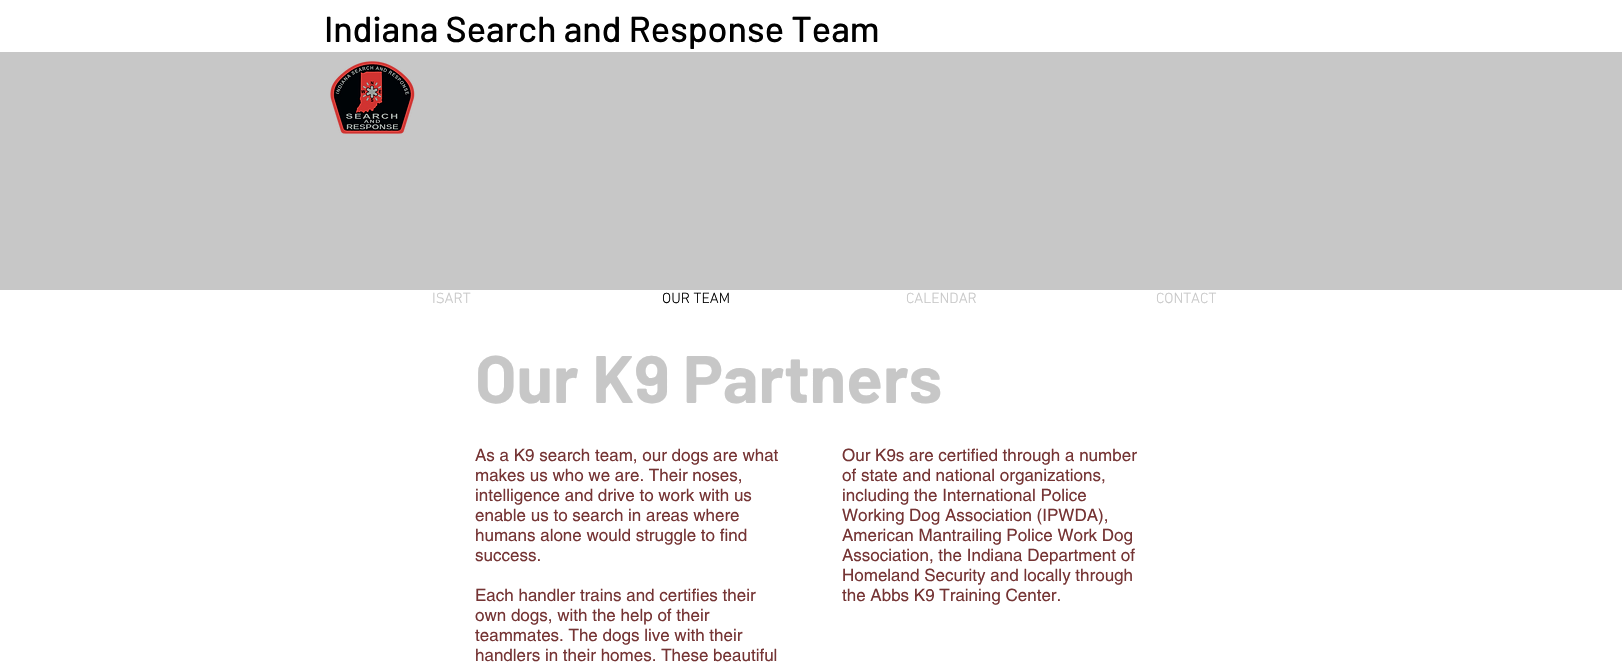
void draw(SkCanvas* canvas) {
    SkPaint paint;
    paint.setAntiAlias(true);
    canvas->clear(0xFFFFFFFF);
    SkFont font1(fontMgr->matchFamilyStyle("Barlow", SkFontStyle(500, SkFontStyle::kNormal_Width, SkFontStyle::kUpright_Slant)), 36);
    font1.setSubpixel(true);
    paint.setColor(0xFF000000);
    canvas->drawString("Indiana Search and Response Team", 324, 42, font1, paint);
    paint.setColor(0xFFC7C7C7);
    canvas->drawRect(SkRect::MakeXYWH(0, 52, 1622, 238), paint);
    canvas->drawImageRect(SkImages::DeferredFromEncodedData(SkData::MakeFromFileName("img1.png")), SkRect::MakeXYWH(330, 61, 85, 73), SkSamplingOptions());
    SkFont font2(fontMgr->matchFamilyStyle("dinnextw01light", SkFontStyle(300, SkFontStyle::kNormal_Width, SkFontStyle::kUpright_Slant)), 15);
    font2.setSubpixel(true);
    canvas->drawString("ISART", 432, 303, font2, paint);
    paint.setColor(0xFF000000);
    canvas->drawString("OUR TEAM", 662, 303, font2, paint);
    paint.setColor(0xFFC7C7C7);
    canvas->drawString("CALENDAR", 906, 303, font2, paint);
    canvas->drawString("CONTACT", 1156, 303, font2, paint);
    SkFont font3(fontMgr->matchFamilyStyle("Barlow", SkFontStyle::Bold()), 67);
    font3.setSubpixel(true);
    canvas->drawString("Our K9 Partners", 475, 403, font3, paint);
    SkFont font4(fontMgr->matchFamilyStyle("helvetica", SkFontStyle::Normal()), 17);
    font4.setSubpixel(true);
    paint.setColor(0xFF753434);
    canvas->drawString("As a K9 search team, our dogs are what", 475, 461, font4, paint);
    canvas->drawString("makes us who we are. Their noses,", 475, 481, font4, paint);
    canvas->drawString("intelligence and drive to work with us", 475, 501, font4, paint);
    canvas->drawString("enable us to search in areas where", 475, 521, font4, paint);
    canvas->drawString("humans alone would struggle to find", 475, 541, font4, paint);
    canvas->drawString("success.", 475, 561, font4, paint);
    canvas->drawString("Each handler trains and certifies their", 475, 601, font4, paint);
    canvas->drawString("own dogs, with the help of their", 475, 621, font4, paint);
    canvas->drawString("teammates. The dogs live with their", 475, 641, font4, paint);
    canvas->drawString("handlers in their homes. These beautiful", 475, 661, font4, paint);
    canvas->drawString("Our K9s are certified through a number", 842, 461, font4, paint);
    canvas->drawString("of state and national organizations,", 842, 481, font4, paint);
    canvas->drawString("including the International Police", 842, 501, font4, paint);
    canvas->drawString("Working Dog Association (IPWDA),", 842, 521, font4, paint);
    canvas->drawString("American Mantrailing Police Work Dog", 842, 541, font4, paint);
    canvas->drawString("Association, the Indiana Department of", 842, 561, font4, paint);
    canvas->drawString("Homeland Security and locally through", 842, 581, font4, paint);
    canvas->drawString("the Abbs K9 Training Center.", 842, 601, font4, paint);
}
